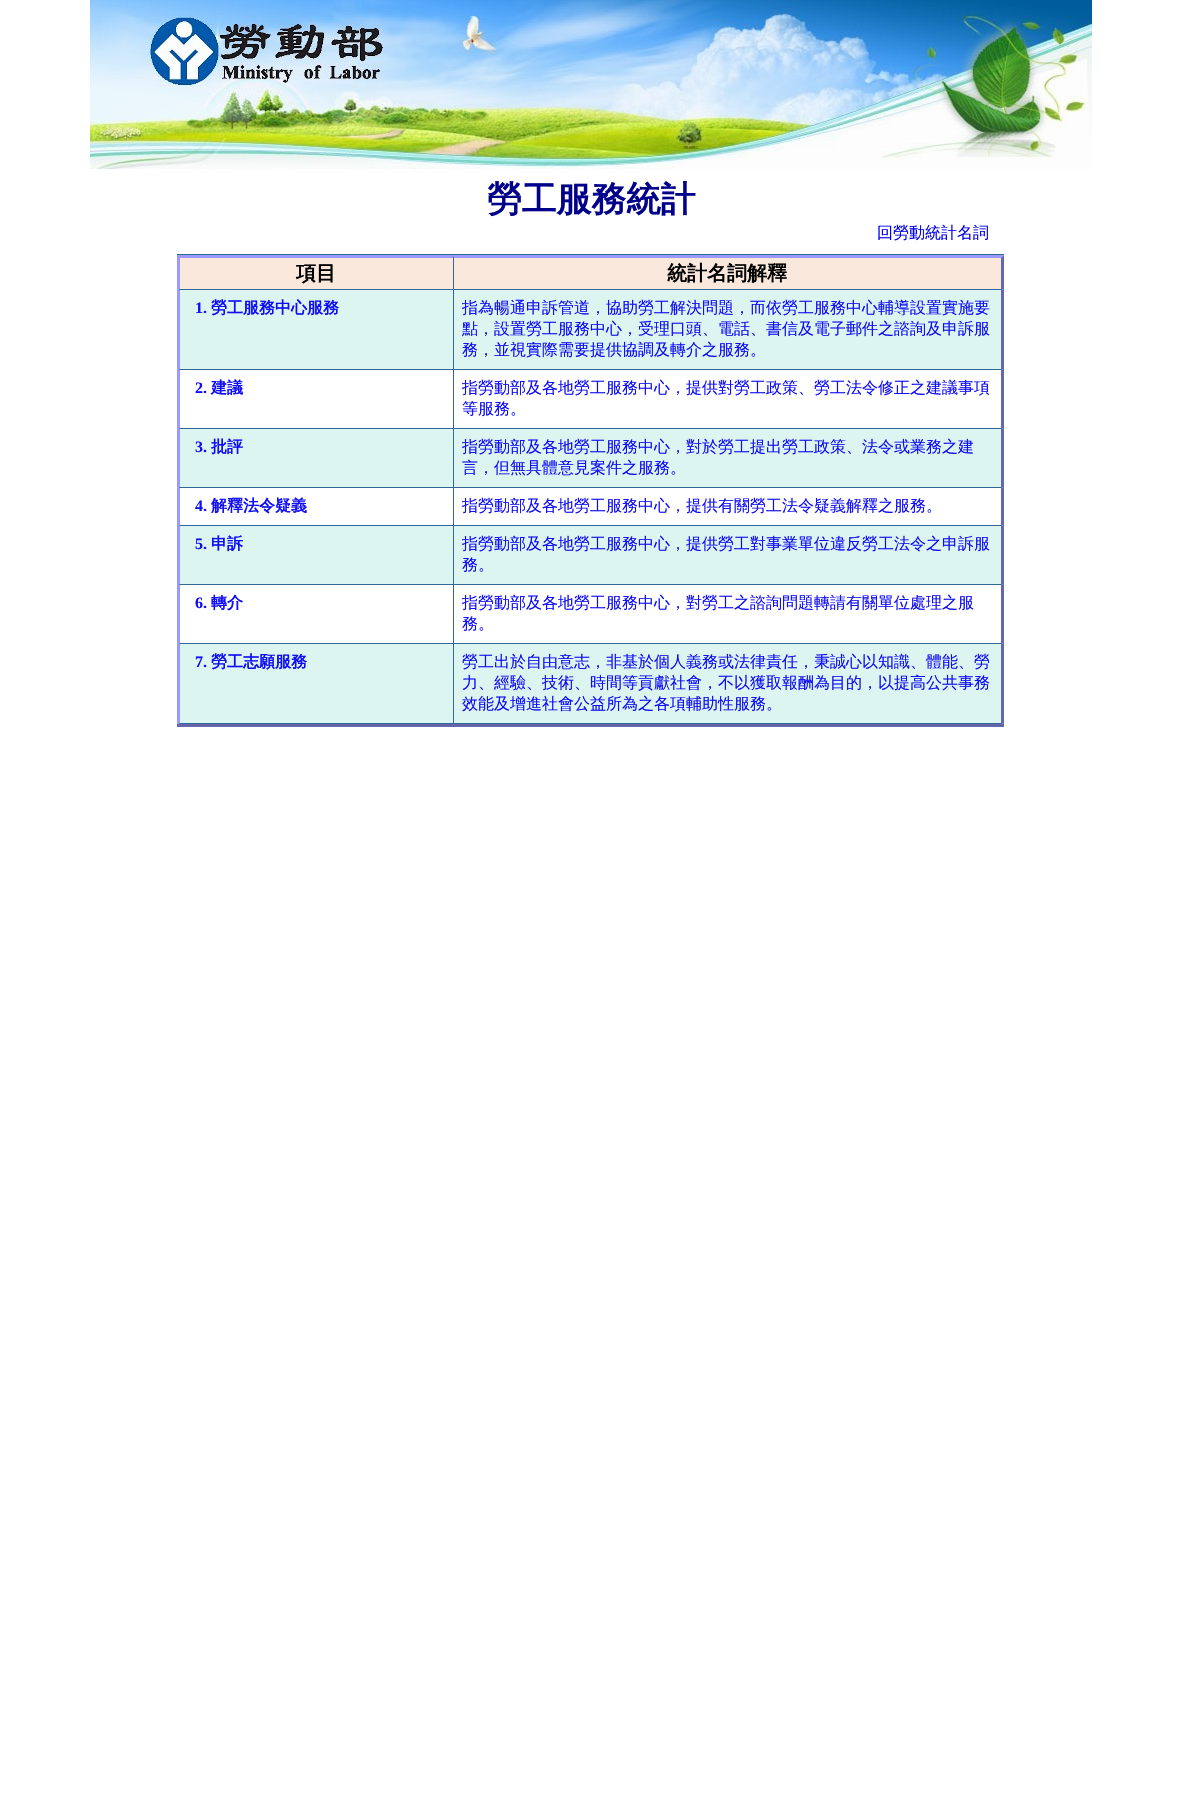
void draw(SkCanvas* canvas) {
    SkPaint paint;
    paint.setAntiAlias(true);
    canvas->clear(0xFFFFFFFF);
    canvas->drawImageRect(SkImages::DeferredFromEncodedData(SkData::MakeFromFileName("img1.png")), SkRect::MakeXYWH(90, 0, 1002, 169), SkSamplingOptions());
    SkFont font1(fontMgr->matchFamilyStyle("WenQuanYi Zen Hei", SkFontStyle::Bold()), 34.75f);
    font1.setSubpixel(true);
    paint.setColor(0xFF00008B);
    canvas->drawString("勞工服務統計", 487, 211, font1, paint);
    SkFont font2(fontMgr->matchFamilyStyle("WenQuanYi Zen Hei", SkFontStyle(500, SkFontStyle::kNormal_Width, SkFontStyle::kUpright_Slant)), 16);
    font2.setSubpixel(true);
    paint.setColor(0xFF0000EE);
    canvas->drawString("回勞動統計名詞", 877, 238, font2, paint);
    paint.setColor(0xFFFAE8DC);
    canvas->drawRect(SkRect::MakeXYWH(177, 255, 827, 35), paint);
    paint.setColor(0xFF336699);
    canvas->drawRect(SkRect::MakeXYWH(177, 254, 827, 1), paint);
    paint.setColor(0xFF9999FF);
    canvas->drawRect(SkRect::MakeXYWH(177, 255, 276, 3), paint);
    paint.setColor(0xFF336699);
    canvas->drawPath(SkPathBuilder().moveTo(453, 290).lineTo(177, 290).lineTo(180, 289).lineTo(453, 289).close().detach(), paint);
    paint.setColor(0xFF9999FF);
    canvas->drawPath(SkPathBuilder().moveTo(177, 290).lineTo(177, 255).lineTo(180, 258).lineTo(180, 289).close().detach(), paint);
    SkFont font3(fontMgr->matchFamilyStyle("WenQuanYi Zen Hei", SkFontStyle::Bold()), 20);
    font3.setSubpixel(true);
    paint.setColor(0xFF000000);
    canvas->drawString("項目", 296, 280, font3, paint);
    paint.setColor(0xFF9999FF);
    canvas->drawPath(SkPathBuilder().moveTo(453, 255).lineTo(1004, 255).lineTo(1001, 258).lineTo(454, 258).close().detach(), paint);
    paint.setColor(0xFF6666AA);
    canvas->drawPath(SkPathBuilder().moveTo(1004, 255).lineTo(1004, 290).lineTo(1001, 289).lineTo(1001, 258).close().detach(), paint);
    paint.setColor(0xFF336699);
    canvas->drawPath(SkPathBuilder().moveTo(1004, 290).lineTo(453, 290).lineTo(454, 289).lineTo(1001, 289).close().detach(), paint);
    canvas->drawPath(SkPathBuilder().moveTo(453, 290).lineTo(453, 255).lineTo(454, 258).lineTo(454, 289).close().detach(), paint);
    paint.setColor(0xFF000000);
    canvas->drawString("統計名詞解釋", 667, 280, font3, paint);
    paint.setColor(0xFFDCF5F0);
    canvas->drawRect(SkRect::MakeXYWH(177, 290, 827, 80), paint);
    paint.setColor(0xFF336699);
    canvas->drawPath(SkPathBuilder().moveTo(453, 370).lineTo(177, 370).lineTo(180, 369).lineTo(453, 369).close().detach(), paint);
    paint.setColor(0xFF9999FF);
    canvas->drawPath(SkPathBuilder().moveTo(177, 370).lineTo(177, 290).lineTo(180, 290).lineTo(180, 369).close().detach(), paint);
    SkFont font4(fontMgr->matchFamilyStyle("Liberation Serif", SkFontStyle::Bold()), 16);
    font4.setSubpixel(true);
    paint.setColor(0xFF100EF6);
    canvas->drawString("1.", 195, 313, font4, paint);
    SkFont font5(fontMgr->matchFamilyStyle("WenQuanYi Zen Hei", SkFontStyle::Bold()), 16);
    font5.setSubpixel(true);
    canvas->drawString("勞工服務中心服務", 211, 313, font5, paint);
    paint.setColor(0xFF6666AA);
    canvas->drawPath(SkPathBuilder().moveTo(1004, 290).lineTo(1004, 370).lineTo(1001, 369).lineTo(1001, 290).close().detach(), paint);
    paint.setColor(0xFF336699);
    canvas->drawPath(SkPathBuilder().moveTo(1004, 370).lineTo(453, 370).lineTo(454, 369).lineTo(1001, 369).close().detach(), paint);
    canvas->drawRect(SkRect::MakeXYWH(453, 290, 1, 80), paint);
    paint.setColor(0xFF100EF6);
    canvas->drawString("指為暢通申訴管道，協助勞工解決問題，而依勞工服務中心輔導設置實施要", 462, 313, font2, paint);
    canvas->drawString("點，設置勞工服務中心，受理口頭、電話、書信及電子郵件之諮詢及申訴服", 462, 334, font2, paint);
    canvas->drawString("務，並視實際需要提供協調及轉介之服務。", 462, 355, font2, paint);
    paint.setColor(0xFF336699);
    canvas->drawPath(SkPathBuilder().moveTo(453, 429).lineTo(177, 429).lineTo(180, 428).lineTo(453, 428).close().detach(), paint);
    paint.setColor(0xFF9999FF);
    canvas->drawPath(SkPathBuilder().moveTo(177, 429).lineTo(177, 370).lineTo(180, 370).lineTo(180, 428).close().detach(), paint);
    paint.setColor(0xFF100EF6);
    canvas->drawString("2.", 195, 393, font4, paint);
    canvas->drawString("建議", 211, 393, font5, paint);
    paint.setColor(0xFF6666AA);
    canvas->drawPath(SkPathBuilder().moveTo(1004, 370).lineTo(1004, 429).lineTo(1001, 428).lineTo(1001, 370).close().detach(), paint);
    paint.setColor(0xFF336699);
    canvas->drawPath(SkPathBuilder().moveTo(1004, 429).lineTo(453, 429).lineTo(454, 428).lineTo(1001, 428).close().detach(), paint);
    canvas->drawRect(SkRect::MakeXYWH(453, 370, 1, 59), paint);
    paint.setColor(0xFF100EF6);
    canvas->drawString("指勞動部及各地勞工服務中心，提供對勞工政策、勞工法令修正之建議事項", 462, 393, font2, paint);
    canvas->drawString("等服務。", 462, 414, font2, paint);
    paint.setColor(0xFFDCF5F0);
    canvas->drawRect(SkRect::MakeXYWH(177, 429, 827, 59), paint);
    paint.setColor(0xFF336699);
    canvas->drawPath(SkPathBuilder().moveTo(453, 488).lineTo(177, 488).lineTo(180, 487).lineTo(453, 487).close().detach(), paint);
    paint.setColor(0xFF9999FF);
    canvas->drawPath(SkPathBuilder().moveTo(177, 488).lineTo(177, 429).lineTo(180, 429).lineTo(180, 487).close().detach(), paint);
    paint.setColor(0xFF100EF6);
    canvas->drawString("3.", 195, 452, font4, paint);
    canvas->drawString("批評", 211, 452, font5, paint);
    paint.setColor(0xFF6666AA);
    canvas->drawPath(SkPathBuilder().moveTo(1004, 429).lineTo(1004, 488).lineTo(1001, 487).lineTo(1001, 429).close().detach(), paint);
    paint.setColor(0xFF336699);
    canvas->drawPath(SkPathBuilder().moveTo(1004, 488).lineTo(453, 488).lineTo(454, 487).lineTo(1001, 487).close().detach(), paint);
    canvas->drawRect(SkRect::MakeXYWH(453, 429, 1, 59), paint);
    paint.setColor(0xFF100EF6);
    canvas->drawString("指勞動部及各地勞工服務中心，對於勞工提出勞工政策、法令或業務之建", 462, 452, font2, paint);
    canvas->drawString("言，但無具體意見案件之服務。", 462, 473, font2, paint);
    paint.setColor(0xFF336699);
    canvas->drawPath(SkPathBuilder().moveTo(453, 526).lineTo(177, 526).lineTo(180, 525).lineTo(453, 525).close().detach(), paint);
    paint.setColor(0xFF9999FF);
    canvas->drawPath(SkPathBuilder().moveTo(177, 526).lineTo(177, 488).lineTo(180, 488).lineTo(180, 525).close().detach(), paint);
    paint.setColor(0xFF100EF6);
    canvas->drawString("4.", 195, 511, font4, paint);
    canvas->drawString("解釋法令疑義", 211, 511, font5, paint);
    paint.setColor(0xFF6666AA);
    canvas->drawPath(SkPathBuilder().moveTo(1004, 488).lineTo(1004, 526).lineTo(1001, 525).lineTo(1001, 488).close().detach(), paint);
    paint.setColor(0xFF336699);
    canvas->drawPath(SkPathBuilder().moveTo(1004, 526).lineTo(453, 526).lineTo(454, 525).lineTo(1001, 525).close().detach(), paint);
    canvas->drawRect(SkRect::MakeXYWH(453, 488, 1, 38), paint);
    paint.setColor(0xFF100EF6);
    canvas->drawString("指勞動部及各地勞工服務中心，提供有關勞工法令疑義解釋之服務。", 462, 511, font2, paint);
    paint.setColor(0xFFDCF5F0);
    canvas->drawRect(SkRect::MakeXYWH(177, 526, 827, 59), paint);
    paint.setColor(0xFF336699);
    canvas->drawPath(SkPathBuilder().moveTo(453, 585).lineTo(177, 585).lineTo(180, 584).lineTo(453, 584).close().detach(), paint);
    paint.setColor(0xFF9999FF);
    canvas->drawPath(SkPathBuilder().moveTo(177, 585).lineTo(177, 526).lineTo(180, 526).lineTo(180, 584).close().detach(), paint);
    paint.setColor(0xFF100EF6);
    canvas->drawString("5.", 195, 549, font4, paint);
    canvas->drawString("申訴", 211, 549, font5, paint);
    paint.setColor(0xFF6666AA);
    canvas->drawPath(SkPathBuilder().moveTo(1004, 526).lineTo(1004, 585).lineTo(1001, 584).lineTo(1001, 526).close().detach(), paint);
    paint.setColor(0xFF336699);
    canvas->drawPath(SkPathBuilder().moveTo(1004, 585).lineTo(453, 585).lineTo(454, 584).lineTo(1001, 584).close().detach(), paint);
    canvas->drawRect(SkRect::MakeXYWH(453, 526, 1, 59), paint);
    paint.setColor(0xFF100EF6);
    canvas->drawString("指勞動部及各地勞工服務中心，提供勞工對事業單位違反勞工法令之申訴服", 462, 549, font2, paint);
    canvas->drawString("務。", 462, 570, font2, paint);
    paint.setColor(0xFF336699);
    canvas->drawPath(SkPathBuilder().moveTo(453, 644).lineTo(177, 644).lineTo(180, 643).lineTo(453, 643).close().detach(), paint);
    paint.setColor(0xFF9999FF);
    canvas->drawPath(SkPathBuilder().moveTo(177, 644).lineTo(177, 585).lineTo(180, 585).lineTo(180, 643).close().detach(), paint);
    paint.setColor(0xFF100EF6);
    canvas->drawString("6.", 195, 608, font4, paint);
    canvas->drawString("轉介", 211, 608, font5, paint);
    paint.setColor(0xFF6666AA);
    canvas->drawPath(SkPathBuilder().moveTo(1004, 585).lineTo(1004, 644).lineTo(1001, 643).lineTo(1001, 585).close().detach(), paint);
    paint.setColor(0xFF336699);
    canvas->drawPath(SkPathBuilder().moveTo(1004, 644).lineTo(453, 644).lineTo(454, 643).lineTo(1001, 643).close().detach(), paint);
    canvas->drawRect(SkRect::MakeXYWH(453, 585, 1, 59), paint);
    paint.setColor(0xFF100EF6);
    canvas->drawString("指勞動部及各地勞工服務中心，對勞工之諮詢問題轉請有關單位處理之服", 462, 608, font2, paint);
    canvas->drawString("務。", 462, 629, font2, paint);
    paint.setColor(0xFFDCF5F0);
    canvas->drawRect(SkRect::MakeXYWH(177, 644, 827, 80), paint);
    paint.setColor(0xFF6666AA);
    canvas->drawRect(SkRect::MakeXYWH(177, 724, 827, 3), paint);
    paint.setColor(0xFF336699);
    canvas->drawPath(SkPathBuilder().moveTo(453, 724).lineTo(177, 724).lineTo(180, 723).lineTo(453, 723).close().detach(), paint);
    paint.setColor(0xFF9999FF);
    canvas->drawPath(SkPathBuilder().moveTo(177, 724).lineTo(177, 644).lineTo(180, 644).lineTo(180, 723).close().detach(), paint);
    paint.setColor(0xFF100EF6);
    canvas->drawString("7.", 195, 667, font4, paint);
    canvas->drawString("勞工志願服務", 211, 667, font5, paint);
    paint.setColor(0xFF6666AA);
    canvas->drawPath(SkPathBuilder().moveTo(1004, 644).lineTo(1004, 724).lineTo(1001, 723).lineTo(1001, 644).close().detach(), paint);
    paint.setColor(0xFF336699);
    canvas->drawPath(SkPathBuilder().moveTo(1004, 724).lineTo(453, 724).lineTo(454, 723).lineTo(1001, 723).close().detach(), paint);
    canvas->drawRect(SkRect::MakeXYWH(453, 644, 1, 80), paint);
    paint.setColor(0xFF100EF6);
    canvas->drawString("勞工出於自由意志，非基於個人義務或法律責任，秉誠心以知識、體能、勞", 462, 667, font2, paint);
    canvas->drawString("力、經驗、技術、時間等貢獻社會，不以獲取報酬為目的，以提高公共事務", 462, 688, font2, paint);
    canvas->drawString("效能及增進社會公益所為之各項輔助性服務。", 462, 709, font2, paint);
}
